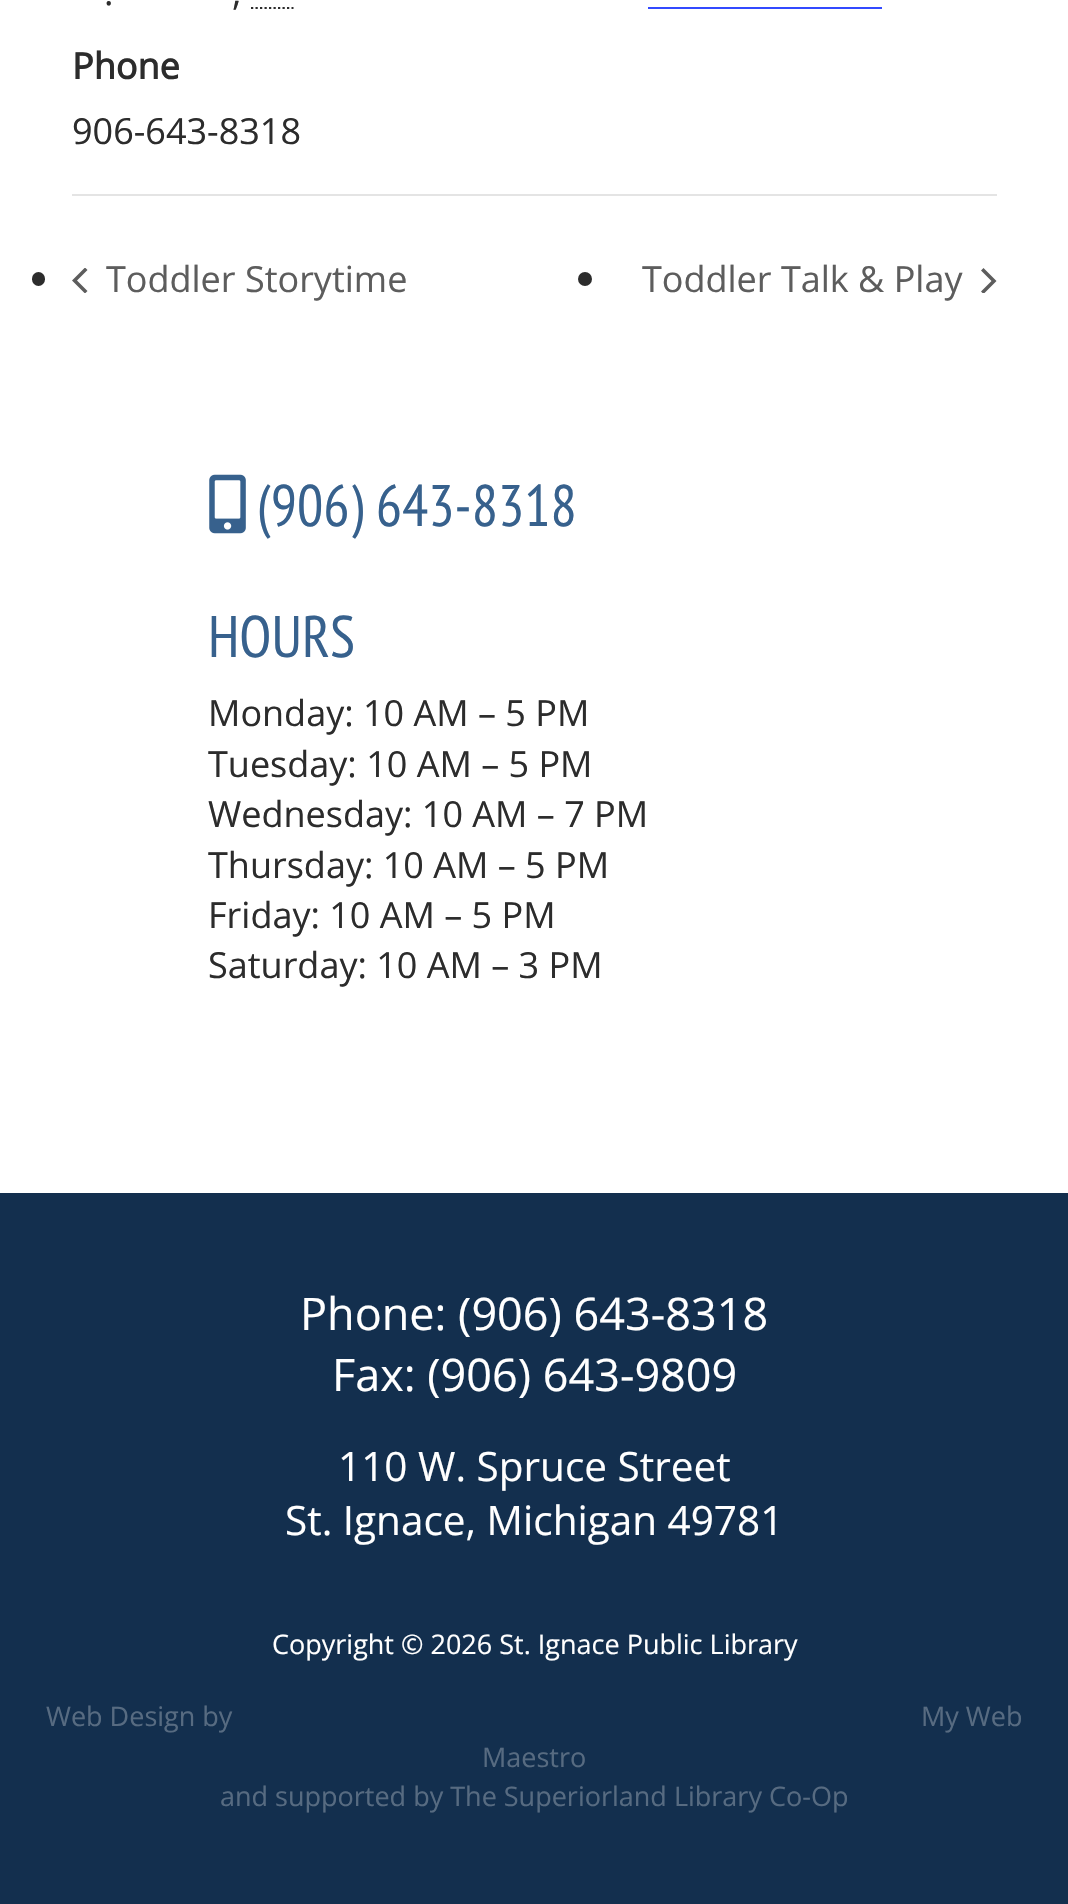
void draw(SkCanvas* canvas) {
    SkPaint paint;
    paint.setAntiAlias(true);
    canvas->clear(0xFFFFFFFF);
    SkFont font1(fontMgr->matchFamilyStyle("Open Sans", SkFontStyle::Normal()), 36);
    font1.setSubpixel(true);
    paint.setColor(0xFF2C2C2C);
    canvas->drawString(".", 104, 5, font1, paint);
    canvas->drawString(",", 232, 5, font1, paint);
    paint.setStyle(SkPaint::kStroke_Style);
    paint.setStrokeWidth(2.2f);
    paint.setPathEffect(SkDashPathEffect::Make({{2.25f, 2.25f}}, 0));
    canvas->drawPath(SkPathBuilder().moveTo(251, 8).lineTo(293.5f, 8).detach(), paint);
    paint.setPathEffect(nullptr);
    paint.setStyle(SkPaint::kFill_Style);
    paint.setColor(0xFF334AFF);
    canvas->drawRect(SkRect::MakeXYWH(648, 7, 234, 2), paint);
    SkFont font2(fontMgr->matchFamilyStyle("Open Sans", SkFontStyle::Bold()), 36);
    font2.setSubpixel(true);
    paint.setColor(0xFF2C2C2C);
    canvas->drawString("Phone", 72, 79, font2, paint);
    canvas->drawString("906-643-8318", 72, 144, font1, paint);
    paint.setColor(0xFFE4E4E4);
    canvas->drawRect(SkRect::MakeXYWH(72, 194, 925, 2), paint);
    paint.setColor(0xFF2C2C2C);
    canvas->drawRoundRect(SkRect::MakeXYWH(32, 272, 13, 14), 6.5f, 6.5f, paint);
    canvas->save();
    canvas->clipRect(SkRect::MakeXYWH(72, 268, 16, 25));
    paint.setColor(0xFF5D5D5D);
    canvas->drawPath(SkPathBuilder().moveTo(87.5f, 291).lineTo(85, 293.5f).lineTo(72, 280.5f).lineTo(85, 267.5f).lineTo(87.5f, 270).lineTo(77, 280.5f).close().detach(), paint);
    canvas->restore();
    canvas->drawString("Toddler Storytime", 106, 292, font1, paint);
    paint.setColor(0xFF2C2C2C);
    canvas->drawCircle(585, 279, 7, paint);
    paint.setColor(0xFF5D5D5D);
    canvas->drawString("Toddler Talk & Play", 642, 292, font1, paint);
    canvas->save();
    canvas->clipRect(SkRect::MakeXYWH(981, 268, 16, 25));
    canvas->drawPath(SkPathBuilder().moveTo(981, 270.5f).lineTo(983.5f, 268).lineTo(996.5f, 281).lineTo(983.5f, 294).lineTo(981, 291.5f).lineTo(991.5f, 281).close().detach(), paint);
    canvas->restore();
    canvas->drawImageRect(SkImages::DeferredFromEncodedData(SkData::MakeFromFileName("img1.png")), SkRect::MakeXYWH(209, 474, 37, 60), SkSamplingOptions());
    SkFont font3(fontMgr->matchFamilyStyle("PT Sans Narrow", SkFontStyle::Normal()), 58.5f);
    font3.setSubpixel(true);
    paint.setColor(0xFF37618D);
    canvas->drawString("(906) 643-8318", 257, 526, font3, paint);
    canvas->drawString("HOURS", 208, 657, font3, paint);
    paint.setColor(0xFF2C2C2C);
    canvas->drawString("Monday: 10 AM – 5 PM", 208, 726, font1, paint);
    canvas->drawString("Tuesday: 10 AM – 5 PM", 208, 777, font1, paint);
    canvas->drawString("Wednesday: 10 AM – 7 PM", 208, 827, font1, paint);
    canvas->drawString("Thursday: 10 AM – 5 PM", 208, 878, font1, paint);
    canvas->drawString("Friday: 10 AM – 5 PM", 208, 928, font1, paint);
    canvas->drawString("Saturday: 10 AM – 3 PM", 208, 978, font1, paint);
    paint.setColor(0xFF132F4E);
    canvas->drawRect(SkRect::MakeXYWH(0, 1193, 1068, 711), paint);
    SkFont font4(fontMgr->matchFamilyStyle("Open Sans", SkFontStyle::Normal()), 45);
    font4.setSubpixel(true);
    paint.setColor(0xFFFFFFFF);
    canvas->drawString("Phone: (906) 643-8318", 300, 1330, font4, paint);
    canvas->drawString("Fax: (906) 643-9809", 332, 1391, font4, paint);
    SkFont font5(fontMgr->matchFamilyStyle("Open Sans", SkFontStyle::Normal()), 40.5f);
    font5.setSubpixel(true);
    canvas->drawString("110 W. Spruce Street", 338, 1481, font5, paint);
    canvas->drawString("St. Ignace, Michigan 49781", 285, 1535, font5, paint);
    SkFont font6(fontMgr->matchFamilyStyle("Open Sans", SkFontStyle::Normal()), 27);
    font6.setSubpixel(true);
    canvas->drawString("Copyright © 2026 St. Ignace Public Library", 272, 1654, font6, paint);
    paint.setColor(0xFF576B81);
    canvas->drawString("Web Design by", 46, 1726, font6, paint);
    canvas->drawString("My Web", 921, 1726, font6, paint);
    canvas->drawString("Maestro", 482, 1767, font6, paint);
    canvas->drawString("and supported by The Superiorland Library Co-Op", 220, 1806, font6, paint);
}
